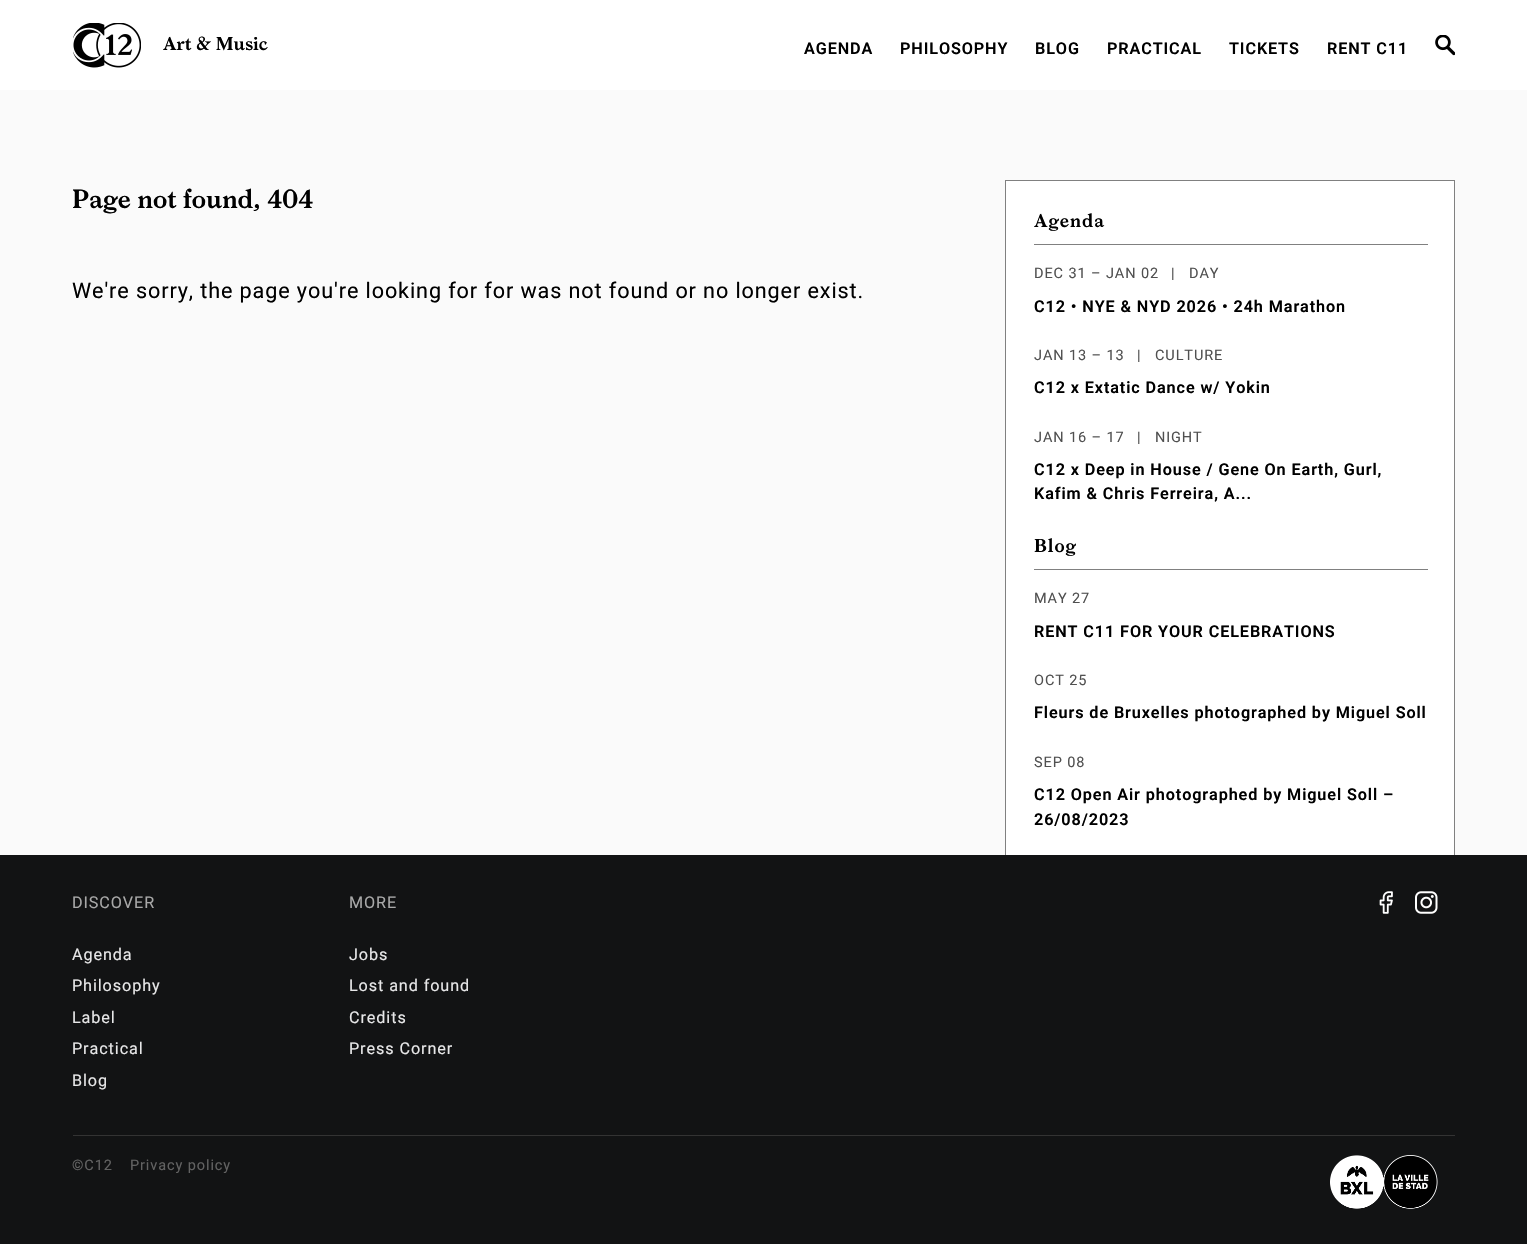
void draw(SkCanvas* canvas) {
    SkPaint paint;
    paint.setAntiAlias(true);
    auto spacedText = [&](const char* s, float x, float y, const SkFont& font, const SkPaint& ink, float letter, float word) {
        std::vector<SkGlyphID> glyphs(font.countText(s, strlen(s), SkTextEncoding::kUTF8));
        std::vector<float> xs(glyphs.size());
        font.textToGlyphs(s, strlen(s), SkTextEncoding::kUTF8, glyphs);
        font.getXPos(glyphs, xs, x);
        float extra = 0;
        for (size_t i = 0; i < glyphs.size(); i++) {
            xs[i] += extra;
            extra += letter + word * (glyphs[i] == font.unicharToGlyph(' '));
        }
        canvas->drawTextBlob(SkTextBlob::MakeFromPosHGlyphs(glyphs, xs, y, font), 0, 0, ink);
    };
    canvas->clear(0xFFFAFAFA);
    paint.setColor(0xFFFFFFFF);
    canvas->drawRect(SkRect::MakeXYWH(0, 0, 1527, 90), paint);
    canvas->drawImageRect(SkImages::DeferredFromEncodedData(SkData::MakeFromFileName("img1.png")), SkRect::MakeXYWH(73, 23, 68, 45), SkSamplingOptions());
    SkFont font1(fontMgr->matchFamilyStyle("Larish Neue", SkFontStyle::Normal()), 18);
    font1.setSubpixel(true);
    paint.setColor(0xFF000000);
    canvas->drawString("Art & Music", 163, 50, font1, paint);
    SkFont font2(fontMgr->matchFamilyStyle("Roboto", SkFontStyle(600, SkFontStyle::kNormal_Width, SkFontStyle::kUpright_Slant)), 16.2f);
    font2.setSubpixel(true);
    spacedText("AGENDA", 804, 54, font2, paint, 0.9f, 0);
    spacedText("PHILOSOPHY", 900, 54, font2, paint, 0.9f, 0);
    spacedText("BLOG", 1035, 54, font2, paint, 0.9f, 0);
    spacedText("PRACTICAL", 1107, 54, font2, paint, 0.9f, 0);
    spacedText("TICKETS", 1229, 54, font2, paint, 0.9f, 0);
    spacedText("RENT C11", 1327, 54, font2, paint, 0.9f, 0);
    canvas->drawImageRect(SkImages::DeferredFromEncodedData(SkData::MakeFromFileName("img2.png")), SkRect::MakeXYWH(1435, 35, 20, 21), SkSamplingOptions());
    SkFont font3(fontMgr->matchFamilyStyle("Larish Neue", SkFontStyle::Normal()), 25.25f);
    font3.setSubpixel(true);
    canvas->drawString("Page not found, 404", 72, 208, font3, paint);
    SkFont font4(fontMgr->matchFamilyStyle("Roboto", SkFontStyle::Normal()), 21.6f);
    font4.setSubpixel(true);
    spacedText("We're sorry, the page you're looking for for was not found or no longer exist.", 72, 298, font4, paint, 0.9f, 0);
    paint.setColor(0xFFFFFFFF);
    canvas->drawRect(SkRect::MakeXYWH(1006, 181, 448, 674), paint);
    paint.setStyle(SkPaint::kStroke_Style);
    paint.setStrokeWidth(1);
    paint.setColor(0xFF808080);
    canvas->drawRect(SkRect::MakeXYWH(1005.5f, 180.5f, 449, 705), paint);
    paint.setStyle(SkPaint::kFill_Style);
    canvas->drawRect(SkRect::MakeXYWH(1034, 244, 394, 1), paint);
    paint.setColor(0xFF000000);
    spacedText("Agenda", 1034, 227, font1, paint, 0.9f, 0);
    SkFont font5(fontMgr->matchFamilyStyle("Roboto", SkFontStyle::Normal()), 14.5f);
    font5.setSubpixel(true);
    paint.setColor(0xFF505050);
    spacedText("DEC 31 – JAN 02", 1034, 278, font5, paint, 0.9f, 0);
    spacedText("|", 1171, 278, font5, paint, 0.9f, 0);
    spacedText("DAY", 1189, 278, font5, paint, 0.9f, 0);
    paint.setColor(0xFF000000);
    spacedText("C12 • NYE & NYD 2026 • 24h Marathon", 1034, 312, font2, paint, 0.9f, 0);
    paint.setColor(0xFF505050);
    spacedText("JAN 13 – 13", 1034, 360, font5, paint, 0.9f, 0);
    spacedText("|", 1137, 360, font5, paint, 0.9f, 0);
    spacedText("CULTURE", 1155, 360, font5, paint, 0.9f, 0);
    paint.setColor(0xFF000000);
    spacedText("C12 x Extatic Dance w/ Yokin", 1034, 393, font2, paint, 0.9f, 0);
    paint.setColor(0xFF505050);
    spacedText("JAN 16 – 17", 1034, 442, font5, paint, 0.9f, 0);
    spacedText("|", 1137, 442, font5, paint, 0.9f, 0);
    spacedText("NIGHT", 1155, 442, font5, paint, 0.9f, 0);
    paint.setColor(0xFF000000);
    spacedText("C12 x Deep in House / Gene On Earth, Gurl,", 1034, 475, font2, paint, 0.9f, 0);
    spacedText("Kafim & Chris Ferreira, A...", 1034, 499, font2, paint, 0.9f, 0);
    paint.setColor(0xFF808080);
    canvas->drawRect(SkRect::MakeXYWH(1034, 569, 394, 1), paint);
    paint.setColor(0xFF000000);
    spacedText("Blog", 1034, 552, font1, paint, 0.9f, 0);
    paint.setColor(0xFF505050);
    spacedText("MAY 27", 1034, 603, font5, paint, 0.9f, 0);
    paint.setColor(0xFF000000);
    spacedText("RENT C11 FOR YOUR CELEBRATIONS", 1034, 637, font2, paint, 0.9f, 0);
    paint.setColor(0xFF505050);
    spacedText("OCT 25", 1034, 685, font5, paint, 0.9f, 0);
    paint.setColor(0xFF000000);
    spacedText("Fleurs de Bruxelles photographed by Miguel Soll", 1034, 718, font2, paint, 0.9f, 0);
    paint.setColor(0xFF505050);
    spacedText("SEP 08", 1034, 767, font5, paint, 0.9f, 0);
    paint.setColor(0xFF000000);
    spacedText("C12 Open Air photographed by Miguel Soll –", 1034, 800, font2, paint, 0.9f, 0);
    spacedText("26/08/2023", 1034, 825, font2, paint, 0.9f, 0);
    paint.setColor(0xFF121314);
    canvas->drawRect(SkRect::MakeXYWH(0, 855, 1527, 389), paint);
    SkFont font6(fontMgr->matchFamilyStyle("Roboto", SkFontStyle::Normal()), 16.2f);
    font6.setSubpixel(true);
    paint.setColor(0xFFA8A8A8);
    spacedText("DISCOVER", 72, 908, font6, paint, 0.9f, 0);
    paint.setColor(0xFFE7E7E8);
    spacedText("Agenda", 72, 960, font6, paint, 0.9f, 0);
    spacedText("Philosophy", 72, 991, font6, paint, 0.9f, 0);
    spacedText("Label", 72, 1023, font6, paint, 0.9f, 0);
    spacedText("Practical", 72, 1054, font6, paint, 0.9f, 0);
    spacedText("Blog", 72, 1086, font6, paint, 0.9f, 0);
    paint.setColor(0xFFA8A8A8);
    spacedText("MORE", 349, 908, font6, paint, 0.9f, 0);
    paint.setColor(0xFFE7E7E8);
    spacedText("Jobs", 349, 960, font6, paint, 0.9f, 0);
    spacedText("Lost and found", 349, 991, font6, paint, 0.9f, 0);
    spacedText("Credits", 349, 1023, font6, paint, 0.9f, 0);
    spacedText("Press Corner", 349, 1054, font6, paint, 0.9f, 0);
    canvas->drawImageRect(SkImages::DeferredFromEncodedData(SkData::MakeFromFileName("img3.png")), SkRect::MakeXYWH(1379, 891, 14, 23), SkSamplingOptions());
    canvas->drawImageRect(SkImages::DeferredFromEncodedData(SkData::MakeFromFileName("img4.png")), SkRect::MakeXYWH(1415, 891, 23, 23), SkSamplingOptions());
    paint.setColor(0xFF333333);
    canvas->drawRect(SkRect::MakeXYWH(73, 1135, 1382, 1), paint);
    paint.setColor(0xFF626262);
    spacedText("©C12", 72, 1170, font5, paint, 0.9f, 0);
    spacedText("Privacy policy", 130, 1170, font5, paint, 0.9f, 0);
    canvas->drawImageRect(SkImages::DeferredFromEncodedData(SkData::MakeFromFileName("img5.png")), SkRect::MakeXYWH(1330, 1155, 108, 54), SkSamplingOptions());
}
